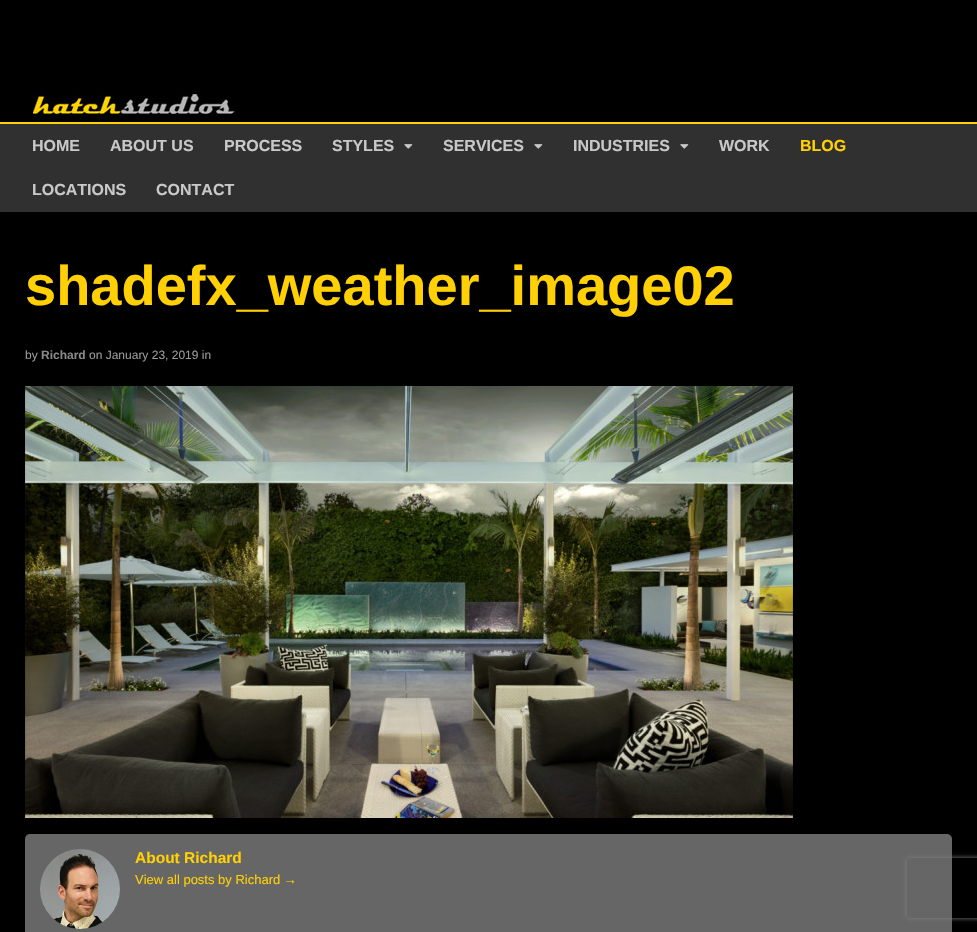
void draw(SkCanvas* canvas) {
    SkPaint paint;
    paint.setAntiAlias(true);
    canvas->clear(0xFF000000);
    canvas->drawImageRect(SkImages::DeferredFromEncodedData(SkData::MakeFromFileName("img1.png")), SkRect::MakeXYWH(33, 90, 205, 27), SkSamplingOptions());
    paint.setColor(0xFF303030);
    canvas->drawRect(SkRect::MakeXYWH(0, 124, 977, 88), paint);
    paint.setColor(0xFFFFD005);
    canvas->drawRect(SkRect::MakeXYWH(0, 122, 977, 2), paint);
    SkFont font1(fontMgr->matchFamilyStyle("Liberation Sans", SkFontStyle::Bold()), 16);
    font1.setSubpixel(true);
    paint.setColor(0xFFC8C8C8);
    canvas->drawString("HOME", 32, 151, font1, paint);
    canvas->drawString("ABOUT US", 110, 151, font1, paint);
    canvas->drawString("PROCESS", 224, 151, font1, paint);
    canvas->drawString("STYLES", 332, 151, font1, paint);
    canvas->drawImageRect(SkImages::DeferredFromEncodedData(SkData::MakeFromFileName("img2.png")), SkRect::MakeXYWH(404, 144, 9, 5), SkSamplingOptions());
    canvas->drawString("SERVICES", 443, 151, font1, paint);
    canvas->drawImageRect(SkImages::DeferredFromEncodedData(SkData::MakeFromFileName("img2.png")), SkRect::MakeXYWH(534, 144, 9, 5), SkSamplingOptions());
    canvas->drawString("INDUSTRIES", 573, 151, font1, paint);
    canvas->drawImageRect(SkImages::DeferredFromEncodedData(SkData::MakeFromFileName("img2.png")), SkRect::MakeXYWH(680, 144, 9, 5), SkSamplingOptions());
    canvas->drawString("WORK", 719, 151, font1, paint);
    paint.setColor(0xFFFFD005);
    canvas->drawString("BLOG", 800, 151, font1, paint);
    paint.setColor(0xFFC8C8C8);
    canvas->drawString("LOCATIONS", 32, 195, font1, paint);
    canvas->drawString("CONTACT", 156, 195, font1, paint);
    SkFont font2(fontMgr->matchFamilyStyle("Liberation Sans", SkFontStyle::Bold()), 56);
    font2.setSubpixel(true);
    paint.setColor(0xFFFFD005);
    canvas->drawString("shadefx_weather_image02", 25, 305, font2, paint);
    SkFont font3(fontMgr->matchFamilyStyle("Liberation Sans", SkFontStyle::Normal()), 12);
    font3.setSubpixel(true);
    paint.setColor(0xFF999999);
    canvas->drawString("by", 25, 359, font3, paint);
    SkFont font4(fontMgr->matchFamilyStyle("Liberation Sans", SkFontStyle::Bold()), 12);
    font4.setSubpixel(true);
    paint.setColor(0xFF888888);
    canvas->drawString("Richard", 41, 359, font4, paint);
    paint.setColor(0xFF999999);
    canvas->drawString("on January 23, 2019 in", 89, 359, font3, paint);
    canvas->drawImageRect(SkImages::DeferredFromEncodedData(SkData::MakeFromFileName("img3.png")), SkRect::MakeXYWH(25, 386, 768, 432), SkSamplingOptions());
    paint.setColor(0xFF666666);
    canvas->drawRoundRect(SkRect::MakeXYWH(25, 834, 927, 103), 5, 5, paint);
    canvas->drawImageRect(SkImages::DeferredFromEncodedData(SkData::MakeFromFileName("img4.png")), SkRect::MakeXYWH(40, 849, 80, 80), SkSamplingOptions());
    SkFont font5(fontMgr->matchFamilyStyle("Liberation Sans", SkFontStyle::Bold()), 15.5f);
    font5.setSubpixel(true);
    paint.setColor(0xFFFFD005);
    canvas->drawString("About Richard", 135, 863, font5, paint);
    SkFont font6(fontMgr->matchFamilyStyle("Liberation Sans", SkFontStyle::Normal()), 13);
    font6.setSubpixel(true);
    canvas->drawString("View all posts by Richard →", 135, 884, font6, paint);
    canvas->save();
    canvas->clipPath(SkPathBuilder(SkPathFillType::kEvenOdd).moveTo(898, 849).lineTo(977, 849).lineTo(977, 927).lineTo(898, 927).close().moveTo(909, 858).lineTo(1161, 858).cubicTo(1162, 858, 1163, 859, 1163, 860).lineTo(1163, 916).cubicTo(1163, 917, 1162, 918, 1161, 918).lineTo(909, 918).cubicTo(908, 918, 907, 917, 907, 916).lineTo(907, 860).cubicTo(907, 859, 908, 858, 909, 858).close().detach(), true);
    paint.setColor(0xFF808080);
    paint.setMaskFilter(SkMaskFilter::MakeBlur(kNormal_SkBlurStyle, 2.5f));
    canvas->drawRoundRect(SkRect::MakeXYWH(907, 858, 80, 60), 2, 2, paint);
    paint.setMaskFilter(nullptr);
    canvas->restore();
}
